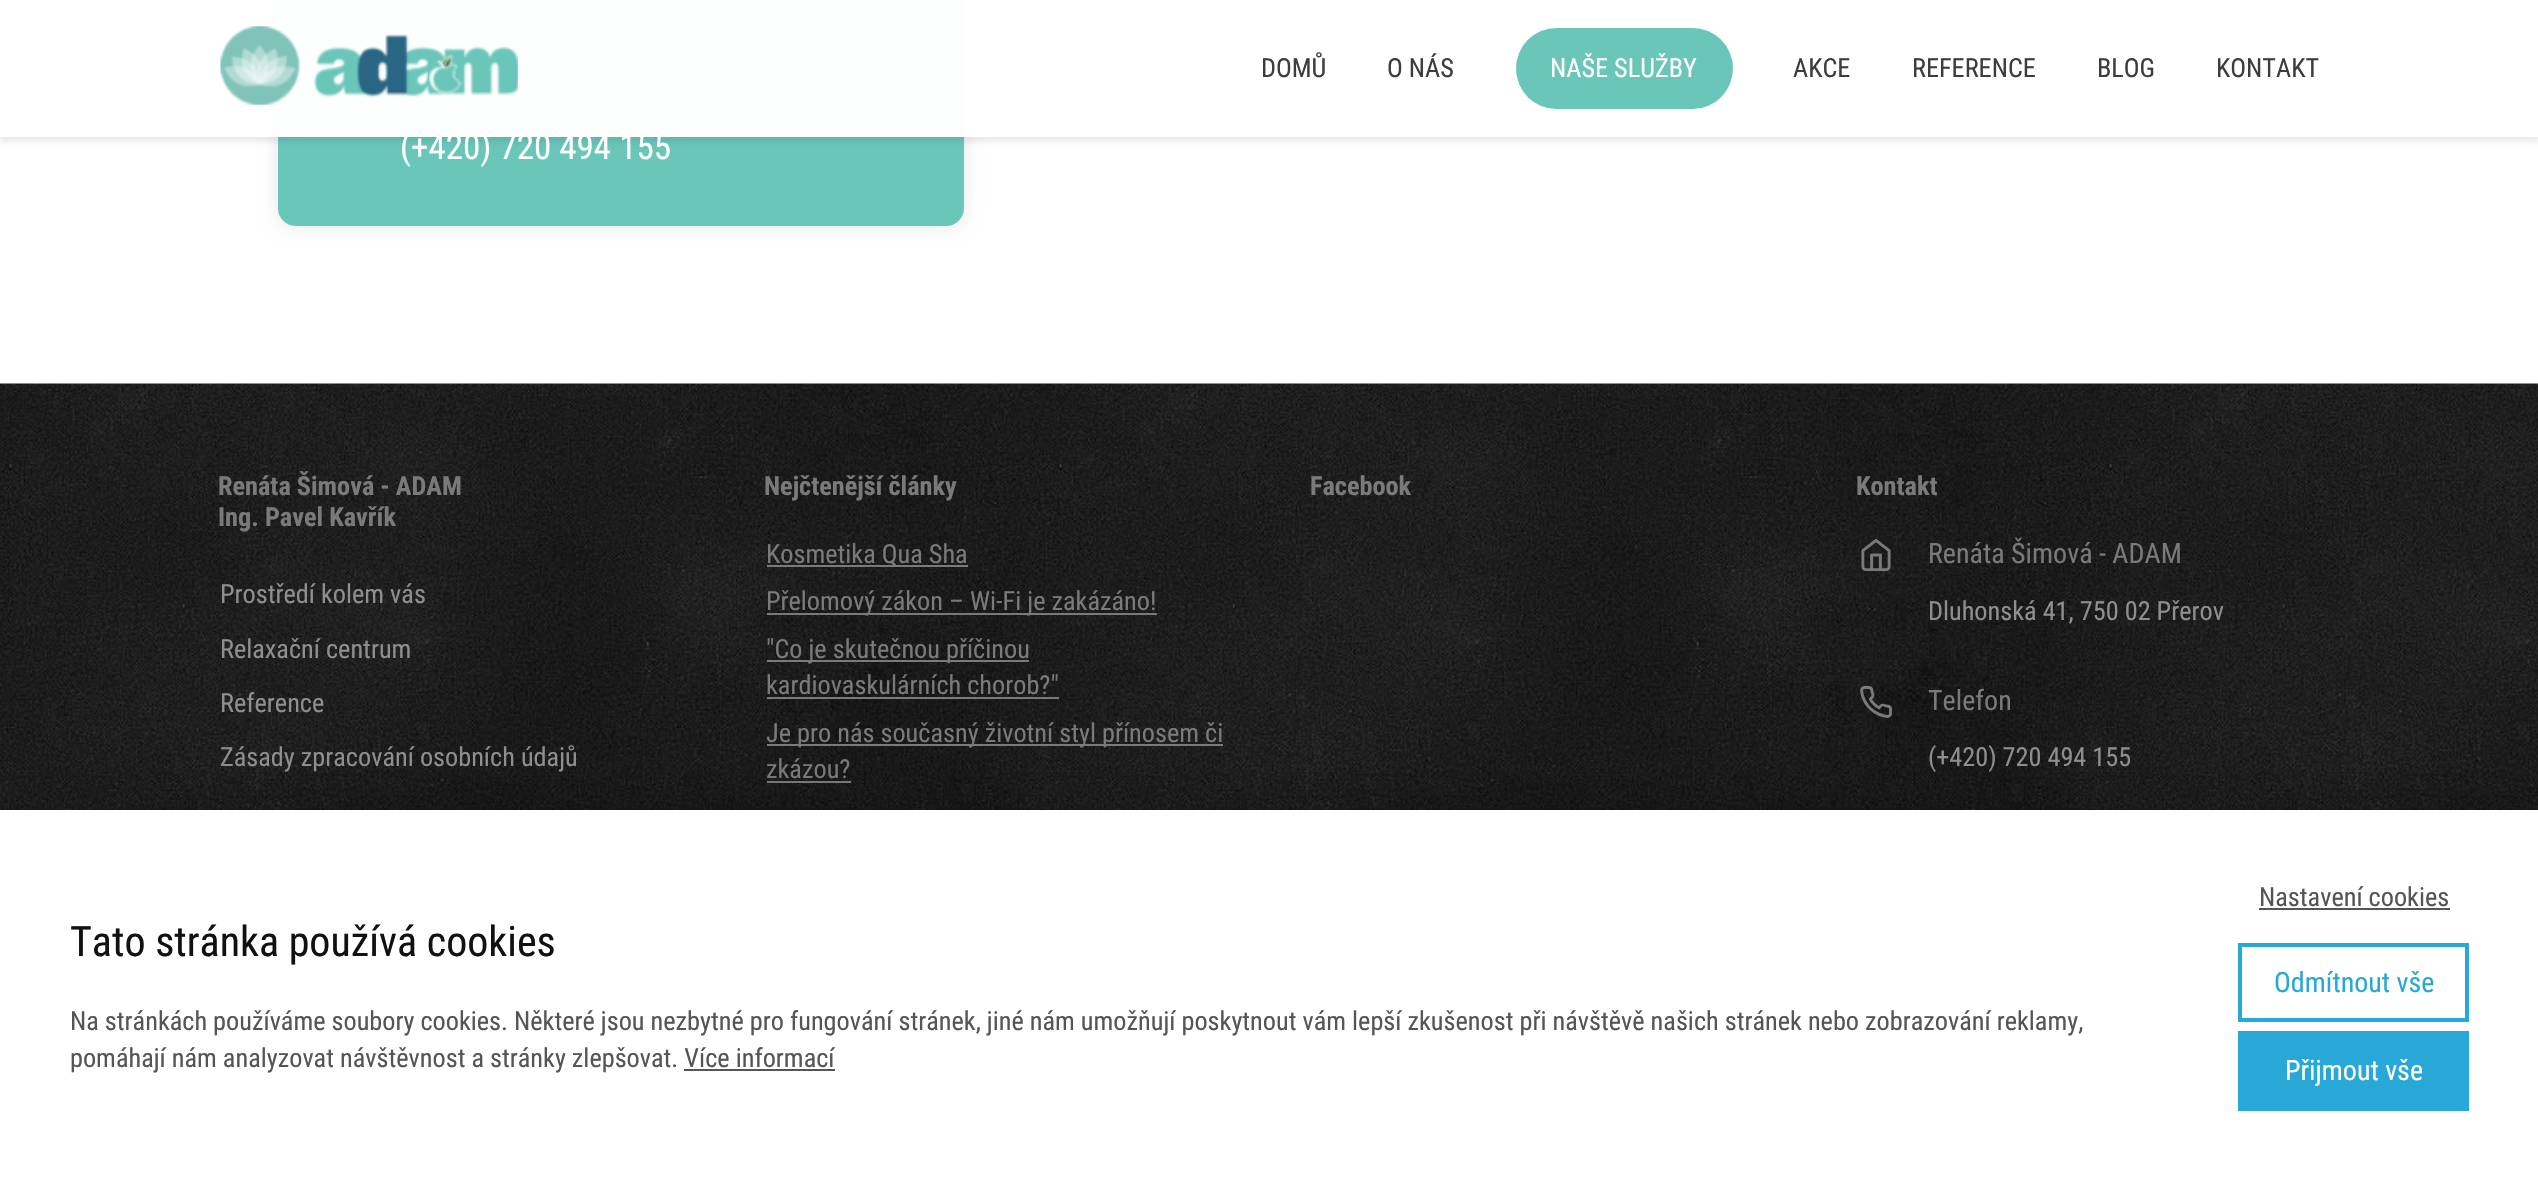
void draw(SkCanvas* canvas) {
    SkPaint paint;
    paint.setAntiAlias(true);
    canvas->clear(0xFFFFFFFF);
    paint.setColor(0x1A000000);
    paint.setMaskFilter(SkMaskFilter::MakeBlur(kNormal_SkBlurStyle, 9));
    canvas->drawRoundRect(SkRect::MakeXYWH(278, -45, 686, 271), 18, 18, paint);
    paint.setMaskFilter(nullptr);
    paint.setColor(0xFF6AC6B9);
    canvas->drawRoundRect(SkRect::MakeXYWH(278, -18, 686, 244), 18, 18, paint);
    canvas->drawImageRect(SkImages::DeferredFromEncodedData(SkData::MakeFromFileName("img2.png")), SkRect::MakeXYWH(332, 57, 15, 26), SkSamplingOptions());
    canvas->save();
    canvas->clipPath(SkPathBuilder(SkPathFillType::kEvenOdd).moveTo(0, 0).lineTo(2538, 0).lineTo(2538, 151).lineTo(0, 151).close().moveTo(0, 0).lineTo(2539, 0).lineTo(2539, 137).lineTo(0, 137).close().detach(), true);
    paint.setColor(0x14000000);
    paint.setMaskFilter(SkMaskFilter::MakeBlur(kNormal_SkBlurStyle, 2.5f));
    canvas->drawRect(SkRect::MakeXYWH(0, 5, 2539, 137), paint);
    paint.setMaskFilter(nullptr);
    canvas->restore();
    SkFont font1(fontMgr->matchFamilyStyle("Roboto Condensed", SkFontStyle::Normal()), 35);
    font1.setSubpixel(true);
    paint.setColor(0xFFFFFFFF);
    canvas->drawString("(+420) 720 494 155", 400, 159, font1, paint);
    paint.setColor(0xFAFFFFFF);
    canvas->drawRect(SkRect::MakeXYWH(0, 0, 2538, 137), paint);
    canvas->drawImageRect(SkImages::DeferredFromEncodedData(SkData::MakeFromFileName("img1.png")), SkRect::MakeXYWH(220, 26, 298, 79), SkSamplingOptions());
    SkFont font2(fontMgr->matchFamilyStyle("Roboto Condensed", SkFontStyle::Normal()), 26.25f);
    font2.setSubpixel(true);
    paint.setColor(0xFF3D3D3D);
    canvas->drawString("DOMŮ", 1261, 77, font2, paint);
    canvas->drawString("O NÁS", 1387, 77, font2, paint);
    paint.setColor(0xFF6AC6B9);
    canvas->drawRoundRect(SkRect::MakeXYWH(1516, 28, 217, 81), 40.5f, 40.5f, paint);
    paint.setColor(0xFFFFFFFF);
    canvas->drawString("NAŠE SLUŽBY", 1550, 77, font2, paint);
    paint.setColor(0xFF3D3D3D);
    canvas->drawString("AKCE", 1793, 77, font2, paint);
    canvas->drawString("REFERENCE", 1912, 77, font2, paint);
    canvas->drawString("BLOG", 2097, 77, font2, paint);
    canvas->drawString("KONTAKT", 2216, 77, font2, paint);
    canvas->drawImageRect(SkImages::DeferredFromEncodedData(SkData::MakeFromFileName("img3.png")), SkRect::MakeXYWH(0, 383, 2538, 427), SkSamplingOptions());
    SkFont font3(fontMgr->matchFamilyStyle("Roboto Condensed", SkFontStyle::Bold()), 26.25f);
    font3.setSubpixel(true);
    paint.setColor(0xFF7A7A7A);
    canvas->drawString("Renáta Šimová - ADAM", 218, 495, font3, paint);
    canvas->drawString("Ing. Pavel Kavřík", 218, 526, font3, paint);
    paint.setColor(0xFF8F8F8F);
    canvas->drawString("Prostředí kolem vás", 220, 603, font2, paint);
    canvas->drawString("Relaxační centrum", 220, 658, font2, paint);
    canvas->drawString("Reference", 220, 712, font2, paint);
    canvas->drawString("Zásady zpracování osobních údajů", 220, 766, font2, paint);
    paint.setColor(0xFF7A7A7A);
    canvas->drawString("Nejčtenější články", 764, 495, font3, paint);
    canvas->drawRect(SkRect::MakeXYWH(767, 565, 201, 2), paint);
    canvas->drawString("Kosmetika Qua Sha", 766, 563, font2, paint);
    canvas->drawRect(SkRect::MakeXYWH(767, 613, 390, 2), paint);
    canvas->drawString("Přelomový zákon – Wi-Fi je zakázáno!", 766, 610, font2, paint);
    canvas->drawRect(SkRect::MakeXYWH(767, 660, 262, 2), paint);
    canvas->drawString("\"Co je skutečnou příčinou", 766, 658, font2, paint);
    canvas->drawString("kardiovaskulárních chorob?\"", 766, 694, font2, paint);
    canvas->drawRect(SkRect::MakeXYWH(767, 697, 292, 2), paint);
    canvas->drawRect(SkRect::MakeXYWH(767, 744, 456, 2), paint);
    canvas->drawString("Je pro nás současný životní styl přínosem či", 766, 742, font2, paint);
    canvas->drawString("zkázou?", 766, 778, font2, paint);
    canvas->drawRect(SkRect::MakeXYWH(767, 781, 84, 2), paint);
    canvas->drawString("Facebook", 1310, 495, font3, paint);
    canvas->drawString("Kontakt", 1856, 495, font3, paint);
    canvas->drawImageRect(SkImages::DeferredFromEncodedData(SkData::MakeFromFileName("img4.png")), SkRect::MakeXYWH(1861, 539, 30, 32), SkSamplingOptions());
    SkFont font4(fontMgr->matchFamilyStyle("Roboto Condensed", SkFontStyle::Normal()), 28);
    font4.setSubpixel(true);
    canvas->drawString("Renáta Šimová - ADAM", 1928, 563, font4, paint);
    paint.setColor(0xFF8F8F8F);
    canvas->drawString("Dluhonská 41, 750 02 Přerov", 1928, 620, font2, paint);
    canvas->drawImageRect(SkImages::DeferredFromEncodedData(SkData::MakeFromFileName("img5.png")), SkRect::MakeXYWH(1860, 686, 32, 32), SkSamplingOptions());
    paint.setColor(0xFF7A7A7A);
    canvas->drawString("Telefon", 1928, 710, font4, paint);
    paint.setColor(0xFF8F8F8F);
    canvas->drawString("(+420) 720 494 155", 1928, 766, font2, paint);
    paint.setColor(0x33000000);
    paint.setMaskFilter(SkMaskFilter::MakeBlur(kNormal_SkBlurStyle, 26));
    canvas->drawRect(SkRect::MakeXYWH(0, 810, 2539, 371), paint);
    paint.setMaskFilter(nullptr);
    paint.setColor(0xFFFFFFFF);
    canvas->drawRect(SkRect::MakeXYWH(0, 810, 2538, 370), paint);
    SkFont font5(fontMgr->matchFamilyStyle("Roboto Condensed", SkFontStyle::Normal()), 42);
    font5.setSubpixel(true);
    paint.setColor(0xFF111111);
    canvas->drawString("Tato stránka používá cookies", 70, 956, font5, paint);
    paint.setColor(0xFF555555);
    canvas->drawString("Na stránkách používáme soubory cookies. Některé jsou nezbytné pro fungování stránek, jiné nám umožňují poskytnout vám lepší zkušenost při návštěvě našich stránek nebo zobrazování reklamy,", 70, 1030, font2, paint);
    canvas->drawString("pomáhají nám analyzovat návštěvnost a stránky zlepšovat. Více informací", 70, 1067, font2, paint);
    canvas->drawRect(SkRect::MakeXYWH(684, 1069, 151, 2), paint);
    canvas->drawString("Nastavení cookies", 2259, 906, font2, paint);
    canvas->drawRect(SkRect::MakeXYWH(2259, 908, 191, 2), paint);
    paint.setStyle(SkPaint::kStroke_Style);
    paint.setStrokeWidth(4);
    paint.setColor(0xFF27A8D7);
    canvas->drawRect(SkRect::MakeXYWH(2240, 945, 227, 75), paint);
    paint.setStyle(SkPaint::kFill_Style);
    canvas->drawString("Odmítnout vše", 2274, 992, font4, paint);
    canvas->drawRect(SkRect::MakeXYWH(2238, 1031, 231, 80), paint);
    paint.setColor(0xFFFFFFFF);
    canvas->drawString("Přijmout vše", 2285, 1080, font4, paint);
}
